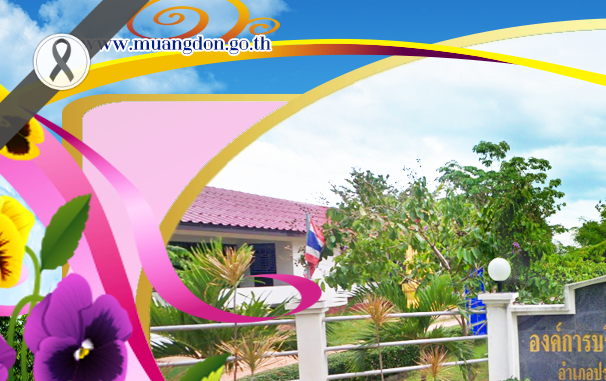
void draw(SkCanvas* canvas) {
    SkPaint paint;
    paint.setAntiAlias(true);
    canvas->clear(0xFFFFFFFF);
    canvas->drawImageRect(SkImages::DeferredFromEncodedData(SkData::MakeFromFileName("img1.png")), SkRect::MakeXYWH(0, 0, 4, 381), SkSamplingOptions());
    canvas->drawImageRect(SkImages::DeferredFromEncodedData(SkData::MakeFromFileName("img2.png")), SkRect::MakeXYWH(4, 0, 602, 381), SkSamplingOptions());
    canvas->drawImageRect(SkImages::DeferredFromEncodedData(SkData::MakeFromFileName("img3.png")), SkRect::MakeXYWH(0, 0, 150, 150), SkSamplingOptions());
}
